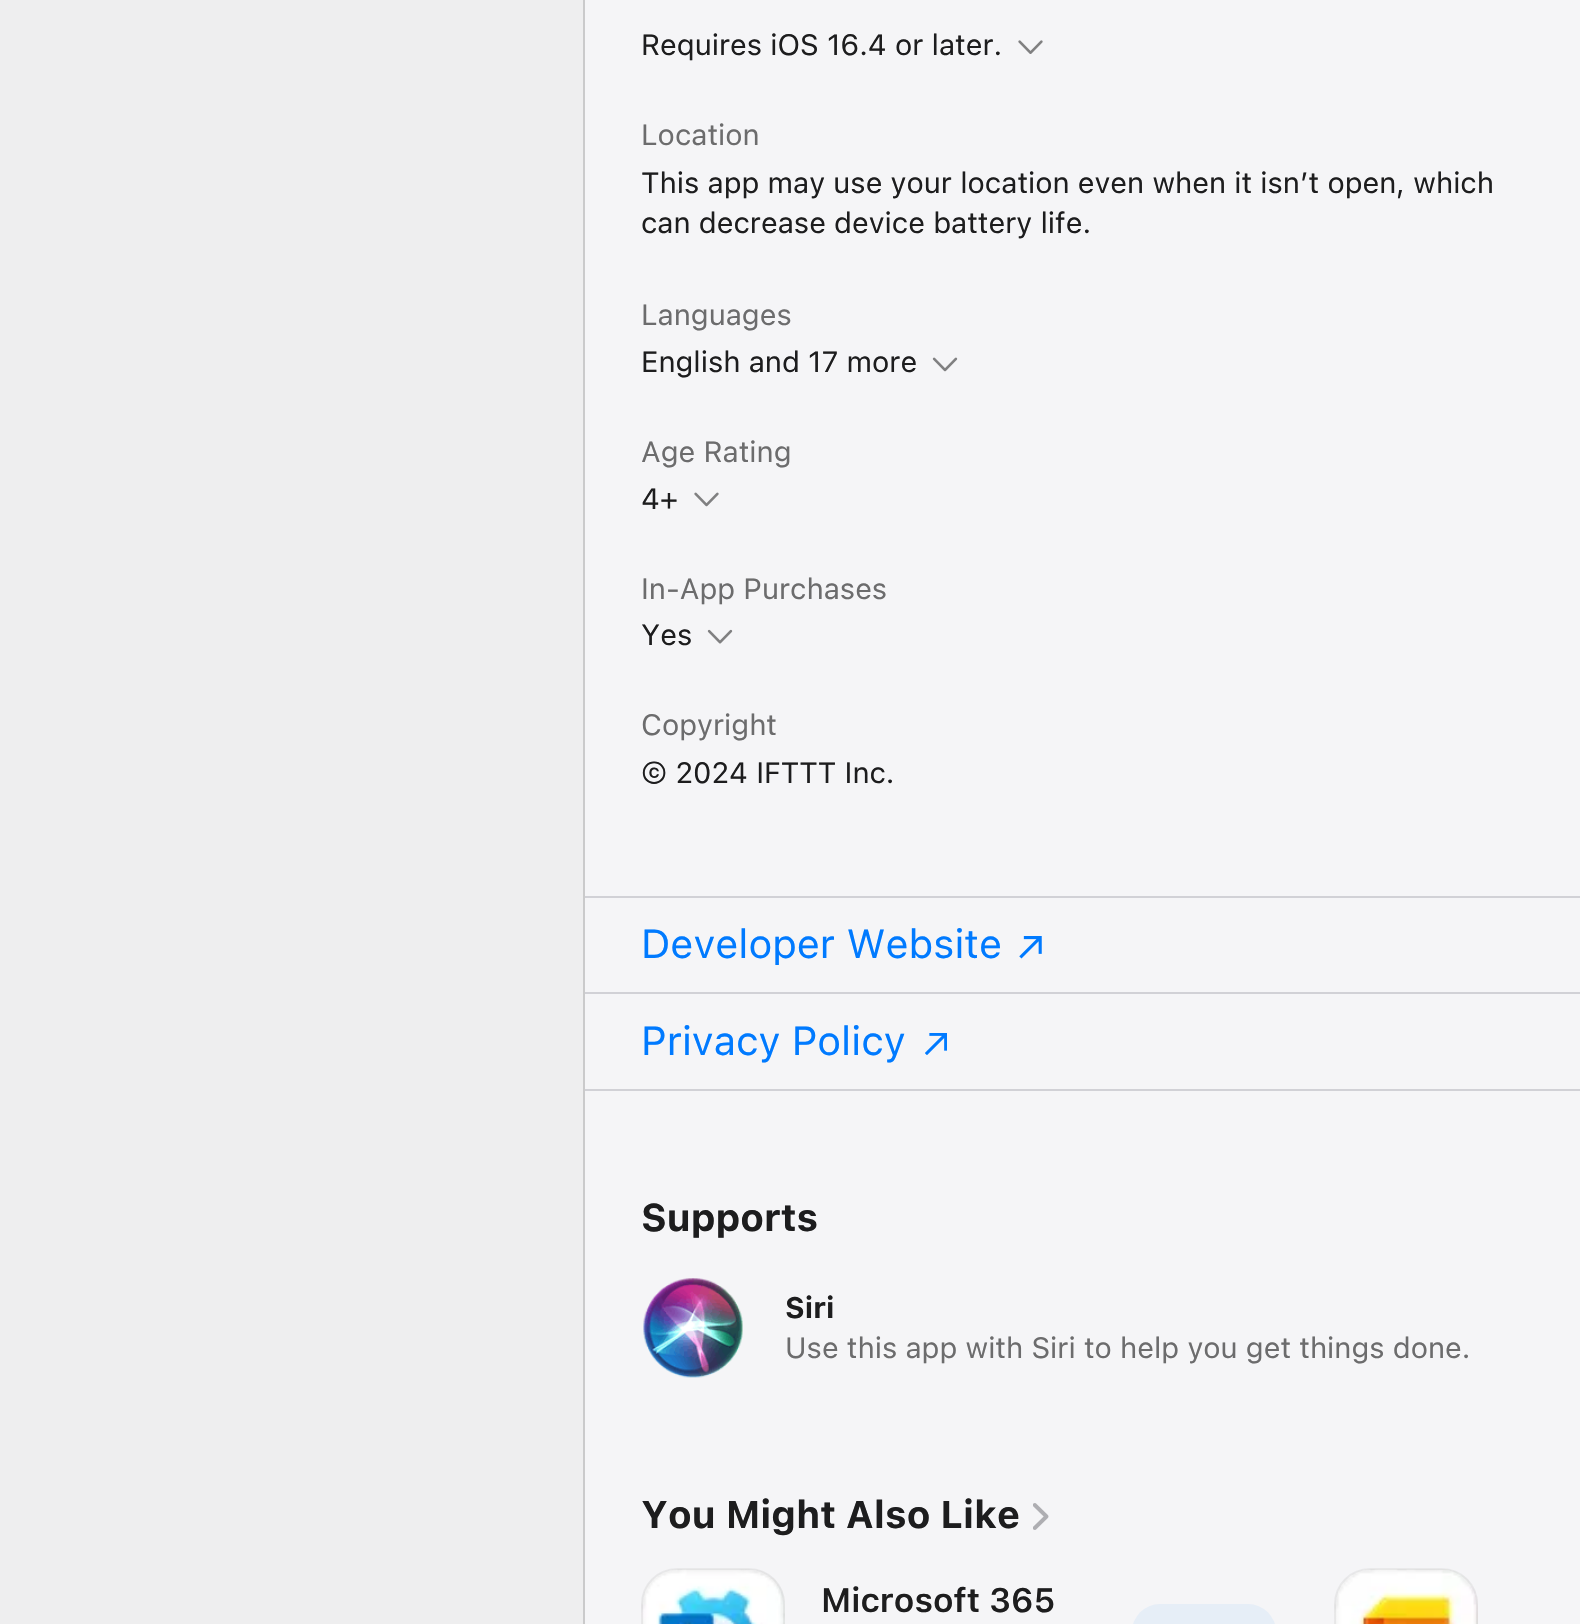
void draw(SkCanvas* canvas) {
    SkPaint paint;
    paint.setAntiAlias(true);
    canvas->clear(0xFFF5F5F7);
    paint.setColor(0xFFEEEEEF);
    canvas->drawRect(SkRect::MakeXYWH(0, 0, 583, 1624), paint);
    paint.setColor(0xFFCACACB);
    canvas->drawRect(SkRect::MakeXYWH(583, 0, 2, 1624), paint);
    SkFont font1(fontMgr->matchFamilyStyle("SF", SkFontStyle::Normal()), 29.25f);
    font1.setSubpixel(true);
    paint.setColor(0xFF1D1D1E);
    canvas->drawString("Requires iOS 16.4 or later.", 641, 55, font1, paint);
    canvas->drawImageRect(SkImages::DeferredFromEncodedData(SkData::MakeFromFileName("img1.png")), SkRect::MakeXYWH(1018, 40, 25, 14), SkSamplingOptions());
    paint.setColor(0xFF6C6C6D);
    canvas->drawString("Location", 641, 145, font1, paint);
    paint.setColor(0xFF1D1D1E);
    canvas->drawString("This app may use your location even when it isn’t open, which", 641, 193, font1, paint);
    canvas->drawString("can decrease device battery life.", 641, 233, font1, paint);
    paint.setColor(0xFF6C6C6D);
    canvas->drawString("Languages", 641, 325, font1, paint);
    paint.setColor(0xFF1D1D1E);
    canvas->drawString("English and 17 more", 641, 372, font1, paint);
    canvas->drawImageRect(SkImages::DeferredFromEncodedData(SkData::MakeFromFileName("img2.png")), SkRect::MakeXYWH(932, 357, 26, 15), SkSamplingOptions());
    paint.setColor(0xFF6C6C6D);
    canvas->drawString("Age Rating", 641, 462, font1, paint);
    paint.setColor(0xFF1D1D1E);
    canvas->drawString("4+", 641, 509, font1, paint);
    canvas->drawImageRect(SkImages::DeferredFromEncodedData(SkData::MakeFromFileName("img3.png")), SkRect::MakeXYWH(694, 492, 25, 15), SkSamplingOptions());
    paint.setColor(0xFF6C6C6D);
    canvas->drawString("In-App Purchases", 641, 599, font1, paint);
    paint.setColor(0xFF1D1D1E);
    canvas->drawString("Yes", 641, 645, font1, paint);
    canvas->drawImageRect(SkImages::DeferredFromEncodedData(SkData::MakeFromFileName("img4.png")), SkRect::MakeXYWH(707, 629, 26, 15), SkSamplingOptions());
    paint.setColor(0xFF6C6C6D);
    canvas->drawString("Copyright", 641, 735, font1, paint);
    paint.setColor(0xFF1D1D1E);
    canvas->drawString("© 2024 IFTTT Inc.", 641, 783, font1, paint);
    paint.setColor(0xFFD1D1D6);
    canvas->drawRect(SkRect::MakeXYWH(585, 896, 995, 2), paint);
    canvas->drawRect(SkRect::MakeXYWH(585, 992, 995, 2), paint);
    SkFont font2(fontMgr->matchFamilyStyle("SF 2", SkFontStyle::Normal()), 40.5f);
    font2.setSubpixel(true);
    paint.setColor(0xFF007AFF);
    canvas->drawString("Developer Website", 641, 958, font2, paint);
    canvas->drawImageRect(SkImages::DeferredFromEncodedData(SkData::MakeFromFileName("img5.png")), SkRect::MakeXYWH(1019, 936, 23, 23), SkSamplingOptions());
    paint.setColor(0xFFD1D1D6);
    canvas->drawRect(SkRect::MakeXYWH(585, 1089, 995, 2), paint);
    paint.setColor(0xFF007AFF);
    canvas->drawString("Privacy Policy", 641, 1055, font2, paint);
    canvas->drawImageRect(SkImages::DeferredFromEncodedData(SkData::MakeFromFileName("img6.png")), SkRect::MakeXYWH(925, 1033, 22, 22), SkSamplingOptions());
    SkFont font3(fontMgr->matchFamilyStyle("SF", SkFontStyle::Bold()), 38.25f);
    font3.setSubpixel(true);
    paint.setColor(0xFF1D1D1E);
    canvas->drawString("Supports", 641, 1231, font3, paint);
    canvas->drawImageRect(SkImages::DeferredFromEncodedData(SkData::MakeFromFileName("img7.png")), SkRect::MakeXYWH(643, 1278, 100, 100), SkSamplingOptions());
    SkFont font4(fontMgr->matchFamilyStyle("SF", SkFontStyle::Bold()), 29.25f);
    font4.setSubpixel(true);
    canvas->drawString("Siri", 785, 1318, font4, paint);
    paint.setColor(0xFF6C6C6D);
    canvas->drawString("Use this app with Siri to help you get things done.", 785, 1358, font1, paint);
    paint.setColor(0xFF1D1D1E);
    canvas->drawString("You Might Also Like", 641, 1528, font3, paint);
    canvas->drawImageRect(SkImages::DeferredFromEncodedData(SkData::MakeFromFileName("img8.png")), SkRect::MakeXYWH(1033, 1503, 16, 27), SkSamplingOptions());
    canvas->drawImageRect(SkImages::DeferredFromEncodedData(SkData::MakeFromFileName("img9.png")), SkRect::MakeXYWH(641, 1569, 144, 55), SkSamplingOptions());
    paint.setStyle(SkPaint::kStroke_Style);
    paint.setStrokeWidth(2);
    paint.setColor(0x1A808080);
    canvas->drawRoundRect(SkRect::MakeXYWH(642, 1569, 142, 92), 35, 35, paint);
    SkFont font5(fontMgr->matchFamilyStyle("SF", SkFontStyle(600, SkFontStyle::kNormal_Width, SkFontStyle::kUpright_Slant)), 33.75f);
    font5.setSubpixel(true);
    paint.setStyle(SkPaint::kFill_Style);
    paint.setColor(0xFF1D1D1E);
    canvas->drawString("Microsoft 365", 821, 1612, font5, paint);
    paint.setColor(0xFFE6EEF7);
    canvas->drawRoundRect(SkRect::MakeXYWH(1132, 1604, 144, 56), 36, 36, paint);
    canvas->drawImageRect(SkImages::DeferredFromEncodedData(SkData::MakeFromFileName("img10.png")), SkRect::MakeXYWH(1334, 1569, 144, 55), SkSamplingOptions());
    paint.setStyle(SkPaint::kStroke_Style);
    paint.setColor(0x1A808080);
    canvas->drawRoundRect(SkRect::MakeXYWH(1335, 1569, 142, 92), 35, 35, paint);
}
